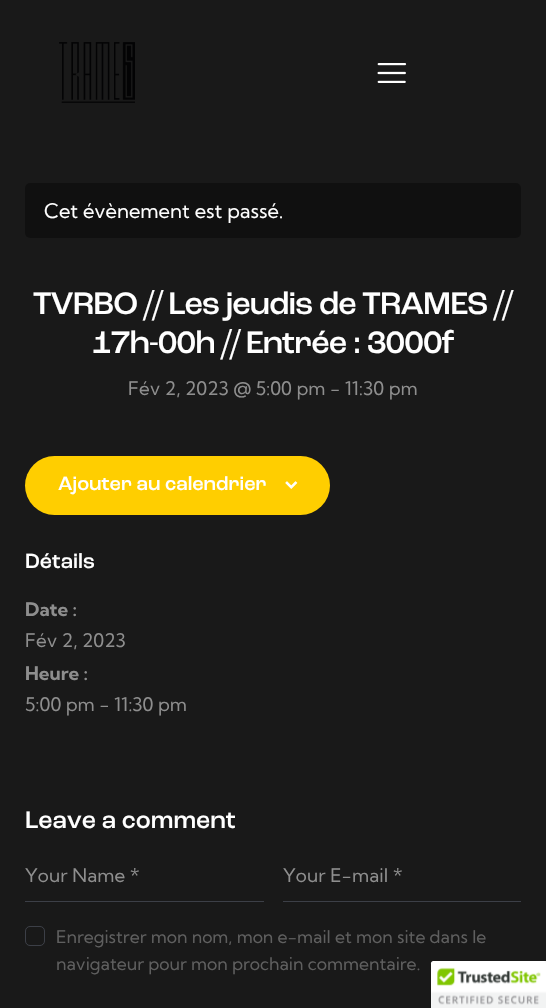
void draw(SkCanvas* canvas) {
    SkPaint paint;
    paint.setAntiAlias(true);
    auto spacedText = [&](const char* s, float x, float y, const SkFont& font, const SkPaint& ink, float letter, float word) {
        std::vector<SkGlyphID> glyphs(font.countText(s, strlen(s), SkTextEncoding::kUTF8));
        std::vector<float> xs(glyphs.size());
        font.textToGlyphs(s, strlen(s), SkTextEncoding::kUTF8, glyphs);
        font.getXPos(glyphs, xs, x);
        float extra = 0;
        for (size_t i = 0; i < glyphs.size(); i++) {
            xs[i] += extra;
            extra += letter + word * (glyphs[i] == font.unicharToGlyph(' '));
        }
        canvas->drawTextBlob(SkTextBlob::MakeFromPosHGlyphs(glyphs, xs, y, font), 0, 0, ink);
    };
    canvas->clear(0xFF191919);
    canvas->drawImageRect(SkImages::DeferredFromEncodedData(SkData::MakeFromFileName("img1.png")), SkRect::MakeXYWH(59, 42, 76, 61), SkSamplingOptions());
    canvas->drawImageRect(SkImages::DeferredFromEncodedData(SkData::MakeFromFileName("img2.png")), SkRect::MakeXYWH(377, 63, 30, 20), SkSamplingOptions());
    paint.setColor(0xFF101010);
    canvas->drawRoundRect(SkRect::MakeXYWH(25, 183, 496, 55), 5, 5, paint);
    SkFont font1(fontMgr->matchFamilyStyle("Kumbh Sans", SkFontStyle::Normal()), 20);
    font1.setSubpixel(true);
    paint.setColor(0xFFFFFFFF);
    canvas->drawString("Cet évènement est passé.", 44, 218, font1, paint);
    SkFont font2(fontMgr->matchFamilyStyle("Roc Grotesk", SkFontStyle(500, SkFontStyle::kNormal_Width, SkFontStyle::kUpright_Slant)), 32.5f);
    font2.setSubpixel(true);
    spacedText("TVRBO // Les jeudis de TRAMES //", 33, 314, font2, paint, -0.9f, 0);
    spacedText("17h-00h // Entrée : 3000f", 92, 353, font2, paint, -0.9f, 0);
    SkFont font3(fontMgr->matchFamilyStyle("Kumbh Sans", SkFontStyle::Normal()), 18.75f);
    font3.setSubpixel(true);
    paint.setColor(0xFF8E8E8E);
    canvas->drawString("Fév 2, 2023 @ 5:00 pm - 11:30 pm", 128, 395, font3, paint);
    paint.setColor(0xFFFFCE00);
    canvas->drawRoundRect(SkRect::MakeXYWH(25, 456, 305, 59), 29.5f, 29.5f, paint);
    SkFont font4(fontMgr->matchFamilyStyle("Roc Grotesk", SkFontStyle(500, SkFontStyle::kNormal_Width, SkFontStyle::kUpright_Slant)), 20);
    font4.setSubpixel(true);
    paint.setColor(0xFFFFFFFF);
    canvas->drawString("Ajouter au calendrier", 58, 490, font4, paint);
    canvas->drawImageRect(SkImages::DeferredFromEncodedData(SkData::MakeFromFileName("img3.png")), SkRect::MakeXYWH(285, 481, 13, 8), SkSamplingOptions());
    SkFont font5(fontMgr->matchFamilyStyle("Roc Grotesk", SkFontStyle(500, SkFontStyle::kNormal_Width, SkFontStyle::kUpright_Slant)), 21.5f);
    font5.setSubpixel(true);
    canvas->drawString("Détails", 25, 568, font5, paint);
    SkFont font6(fontMgr->matchFamilyStyle("Kumbh Sans", SkFontStyle::Bold()), 18.75f);
    font6.setSubpixel(true);
    paint.setColor(0xFF8E8E8E);
    canvas->drawString("Date :", 25, 616, font6, paint);
    canvas->drawString("Fév 2, 2023", 25, 647, font3, paint);
    canvas->drawString("Heure :", 25, 680, font6, paint);
    canvas->drawString("5:00 pm - 11:30 pm", 25, 711, font3, paint);
    SkFont font7(fontMgr->matchFamilyStyle("Roc Grotesk", SkFontStyle(500, SkFontStyle::kNormal_Width, SkFontStyle::kUpright_Slant)), 25);
    font7.setSubpixel(true);
    paint.setColor(0xFFFFFFFF);
    canvas->drawString("Leave a comment", 25, 828, font7, paint);
    paint.setColor(0xFF3C3F47);
    canvas->drawRect(SkRect::MakeXYWH(25, 901, 239, 1), paint);
    paint.setColor(0xFF8E8E8E);
    spacedText("Your Name *", 25, 882, font3, paint, 0.1f, 0);
    paint.setColor(0xFF3C3F47);
    canvas->drawRect(SkRect::MakeXYWH(283, 901, 238, 1), paint);
    paint.setColor(0xFF8E8E8E);
    spacedText("Your E-mail *", 283, 882, font3, paint, 0.1f, 0);
    paint.setStyle(SkPaint::kStroke_Style);
    paint.setStrokeWidth(1);
    paint.setColor(0xFF3C3F47);
    canvas->drawRoundRect(SkRect::MakeXYWH(25.5f, 926.5f, 19, 19), 4.5f, 4.5f, paint);
    SkFont font8(fontMgr->matchFamilyStyle("Kumbh Sans", SkFontStyle::Normal()), 17.5f);
    font8.setSubpixel(true);
    paint.setStyle(SkPaint::kFill_Style);
    paint.setColor(0xFF5F5F5F);
    canvas->drawString("Enregistrer mon nom, mon e-mail et mon site dans le", 56, 943, font8, paint);
    canvas->drawString("navigateur pour mon prochain commentaire.", 56, 970, font8, paint);
    paint.setColor(0xFFFFFFFF);
    canvas->drawPath(SkPathBuilder().moveTo(433.5f, 961).lineTo(546, 961).lineTo(546, 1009).lineTo(431, 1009).lineTo(431, 963.5f).cubicTo(431, 962, 432, 961, 433.5f, 961).close().detach(), paint);
    canvas->drawImageRect(SkImages::DeferredFromEncodedData(SkData::MakeFromFileName("img4.png")), SkRect::MakeXYWH(431, 961, 115, 47), SkSamplingOptions());
}
